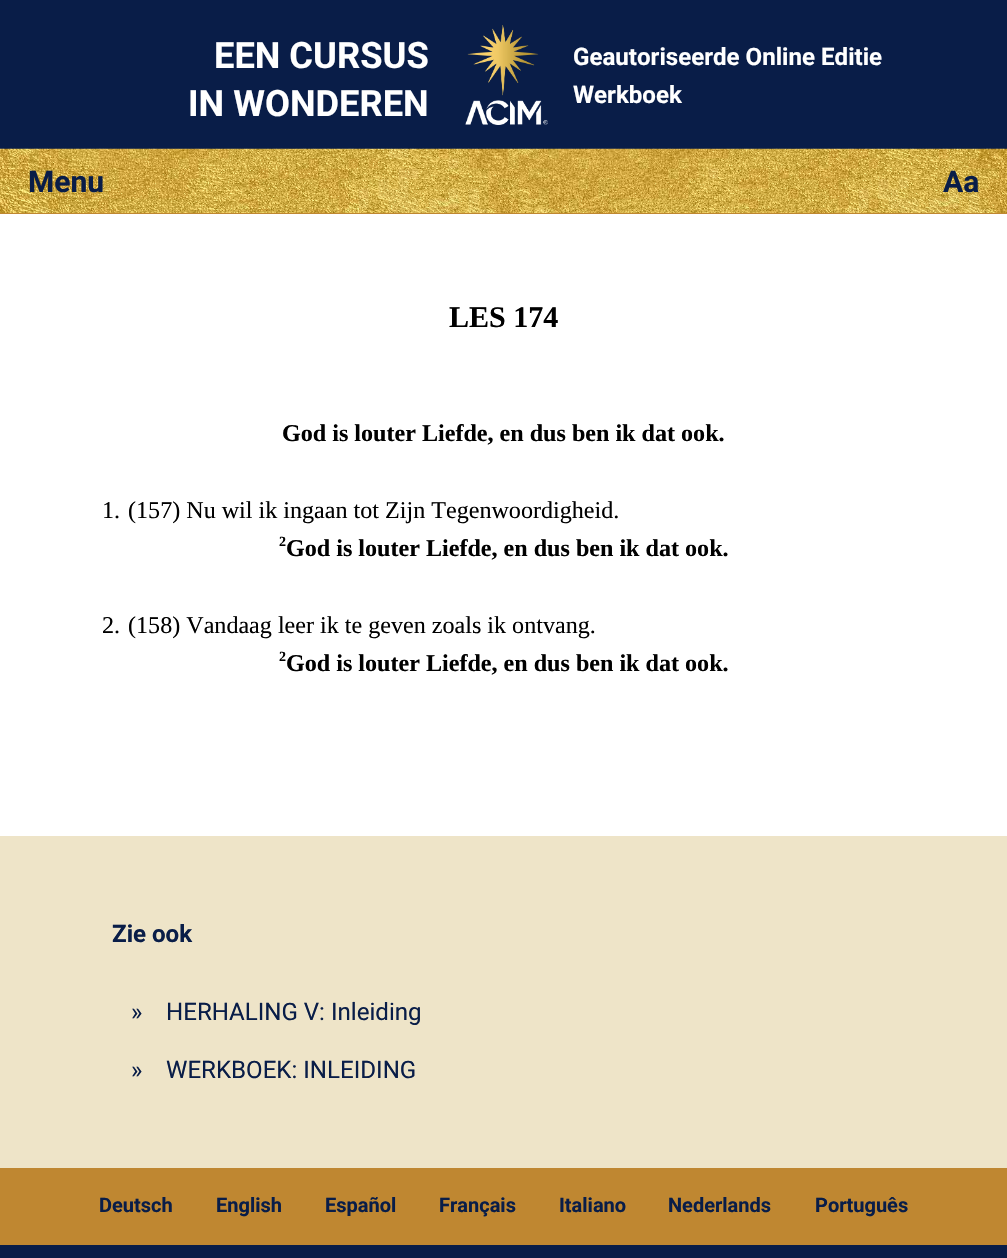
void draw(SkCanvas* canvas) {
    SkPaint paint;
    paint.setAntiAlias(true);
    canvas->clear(0xFFFFFFFF);
    paint.setColor(0xFF091D48);
    canvas->drawRect(SkRect::MakeXYWH(0, 0, 1007, 149), paint);
    SkFont font1(fontMgr->matchFamilyStyle("Roboto", SkFontStyle::Bold()), 36.25f);
    font1.setSubpixel(true);
    paint.setColor(0xFFFFFFFF);
    canvas->drawString("EEN CURSUS", 214, 68, font1, paint);
    canvas->drawString("IN WONDEREN", 188, 116, font1, paint);
    canvas->drawImageRect(SkImages::DeferredFromEncodedData(SkData::MakeFromFileName("img1.png")), SkRect::MakeXYWH(465, 25, 83, 100), SkSamplingOptions());
    SkFont font2(fontMgr->matchFamilyStyle("Roboto", SkFontStyle::Bold()), 24.1f);
    font2.setSubpixel(true);
    canvas->drawString("Geautoriseerde Online Editie", 573, 65, font2, paint);
    canvas->drawString("Werkboek", 573, 103, font2, paint);
    canvas->drawImageRect(SkImages::DeferredFromEncodedData(SkData::MakeFromFileName("img2.png")), SkRect::MakeXYWH(0, 148, 1007, 65), SkSamplingOptions());
    paint.setColor(0xFFBF8731);
    canvas->drawRect(SkRect::MakeXYWH(0, 213, 1007, 1), paint);
    SkFont font3(fontMgr->matchFamilyStyle("Roboto", SkFontStyle::Bold()), 30);
    font3.setSubpixel(true);
    paint.setColor(0xFF091D48);
    canvas->drawString("Menu", 28, 192, font3, paint);
    canvas->drawString("Aa", 943, 192, font3, paint);
    SkFont font4(fontMgr->matchFamilyStyle("Liberation Serif", SkFontStyle::Bold()), 30);
    font4.setSubpixel(true);
    paint.setColor(0xFF000000);
    canvas->drawString("LES 174", 449, 327, font4, paint);
    SkFont font5(fontMgr->matchFamilyStyle("Liberation Serif", SkFontStyle::Bold()), 24.1f);
    font5.setSubpixel(true);
    canvas->drawString("God is louter Liefde, en dus ben ik dat ook.", 282, 441, font5, paint);
    SkFont font6(fontMgr->matchFamilyStyle("Liberation Serif", SkFontStyle::Normal()), 24.1f);
    font6.setSubpixel(true);
    canvas->drawString("1.", 102, 518, font6, paint);
    canvas->drawString("(157) Nu wil ik ingaan tot Zijn Tegenwoordigheid.", 128, 518, font6, paint);
    SkFont font7(fontMgr->matchFamilyStyle("Liberation Serif", SkFontStyle::Bold()), 14);
    font7.setSubpixel(true);
    canvas->drawString("2", 279, 546, font7, paint);
    canvas->drawString("God is louter Liefde, en dus ben ik dat ook.", 286, 556, font5, paint);
    canvas->drawString("2.", 102, 633, font6, paint);
    canvas->drawString("(158) Vandaag leer ik te geven zoals ik ontvang.", 128, 633, font6, paint);
    canvas->drawString("2", 279, 661, font7, paint);
    canvas->drawString("God is louter Liefde, en dus ben ik dat ook.", 286, 671, font5, paint);
    paint.setColor(0xFFEEE4C8);
    canvas->drawRect(SkRect::MakeXYWH(0, 836, 1007, 332), paint);
    paint.setColor(0xFF091D48);
    canvas->drawString("Zie ook", 112, 942, font2, paint);
    SkFont font8(fontMgr->matchFamilyStyle("Roboto", SkFontStyle::Normal()), 24.1f);
    font8.setSubpixel(true);
    canvas->drawString("»", 131, 1020, font8, paint);
    canvas->drawString("HERHALING V: Inleiding", 166, 1020, font8, paint);
    canvas->drawString("»", 131, 1078, font8, paint);
    canvas->drawString("WERKBOEK: INLEIDING", 166, 1078, font8, paint);
    paint.setColor(0xFFBF8731);
    canvas->drawRect(SkRect::MakeXYWH(0, 1168, 1007, 77), paint);
    SkFont font9(fontMgr->matchFamilyStyle("Roboto", SkFontStyle::Bold()), 20);
    font9.setSubpixel(true);
    paint.setColor(0xFF091D48);
    canvas->drawString("Deutsch", 99, 1212, font9, paint);
    canvas->drawString("English", 216, 1212, font9, paint);
    canvas->drawString("Español", 325, 1212, font9, paint);
    canvas->drawString("Français", 439, 1212, font9, paint);
    canvas->drawString("Italiano", 559, 1212, font9, paint);
    canvas->drawString("Nederlands", 668, 1212, font9, paint);
    canvas->drawString("Português", 815, 1212, font9, paint);
    canvas->drawRect(SkRect::MakeXYWH(0, 1245, 1007, 13), paint);
}
